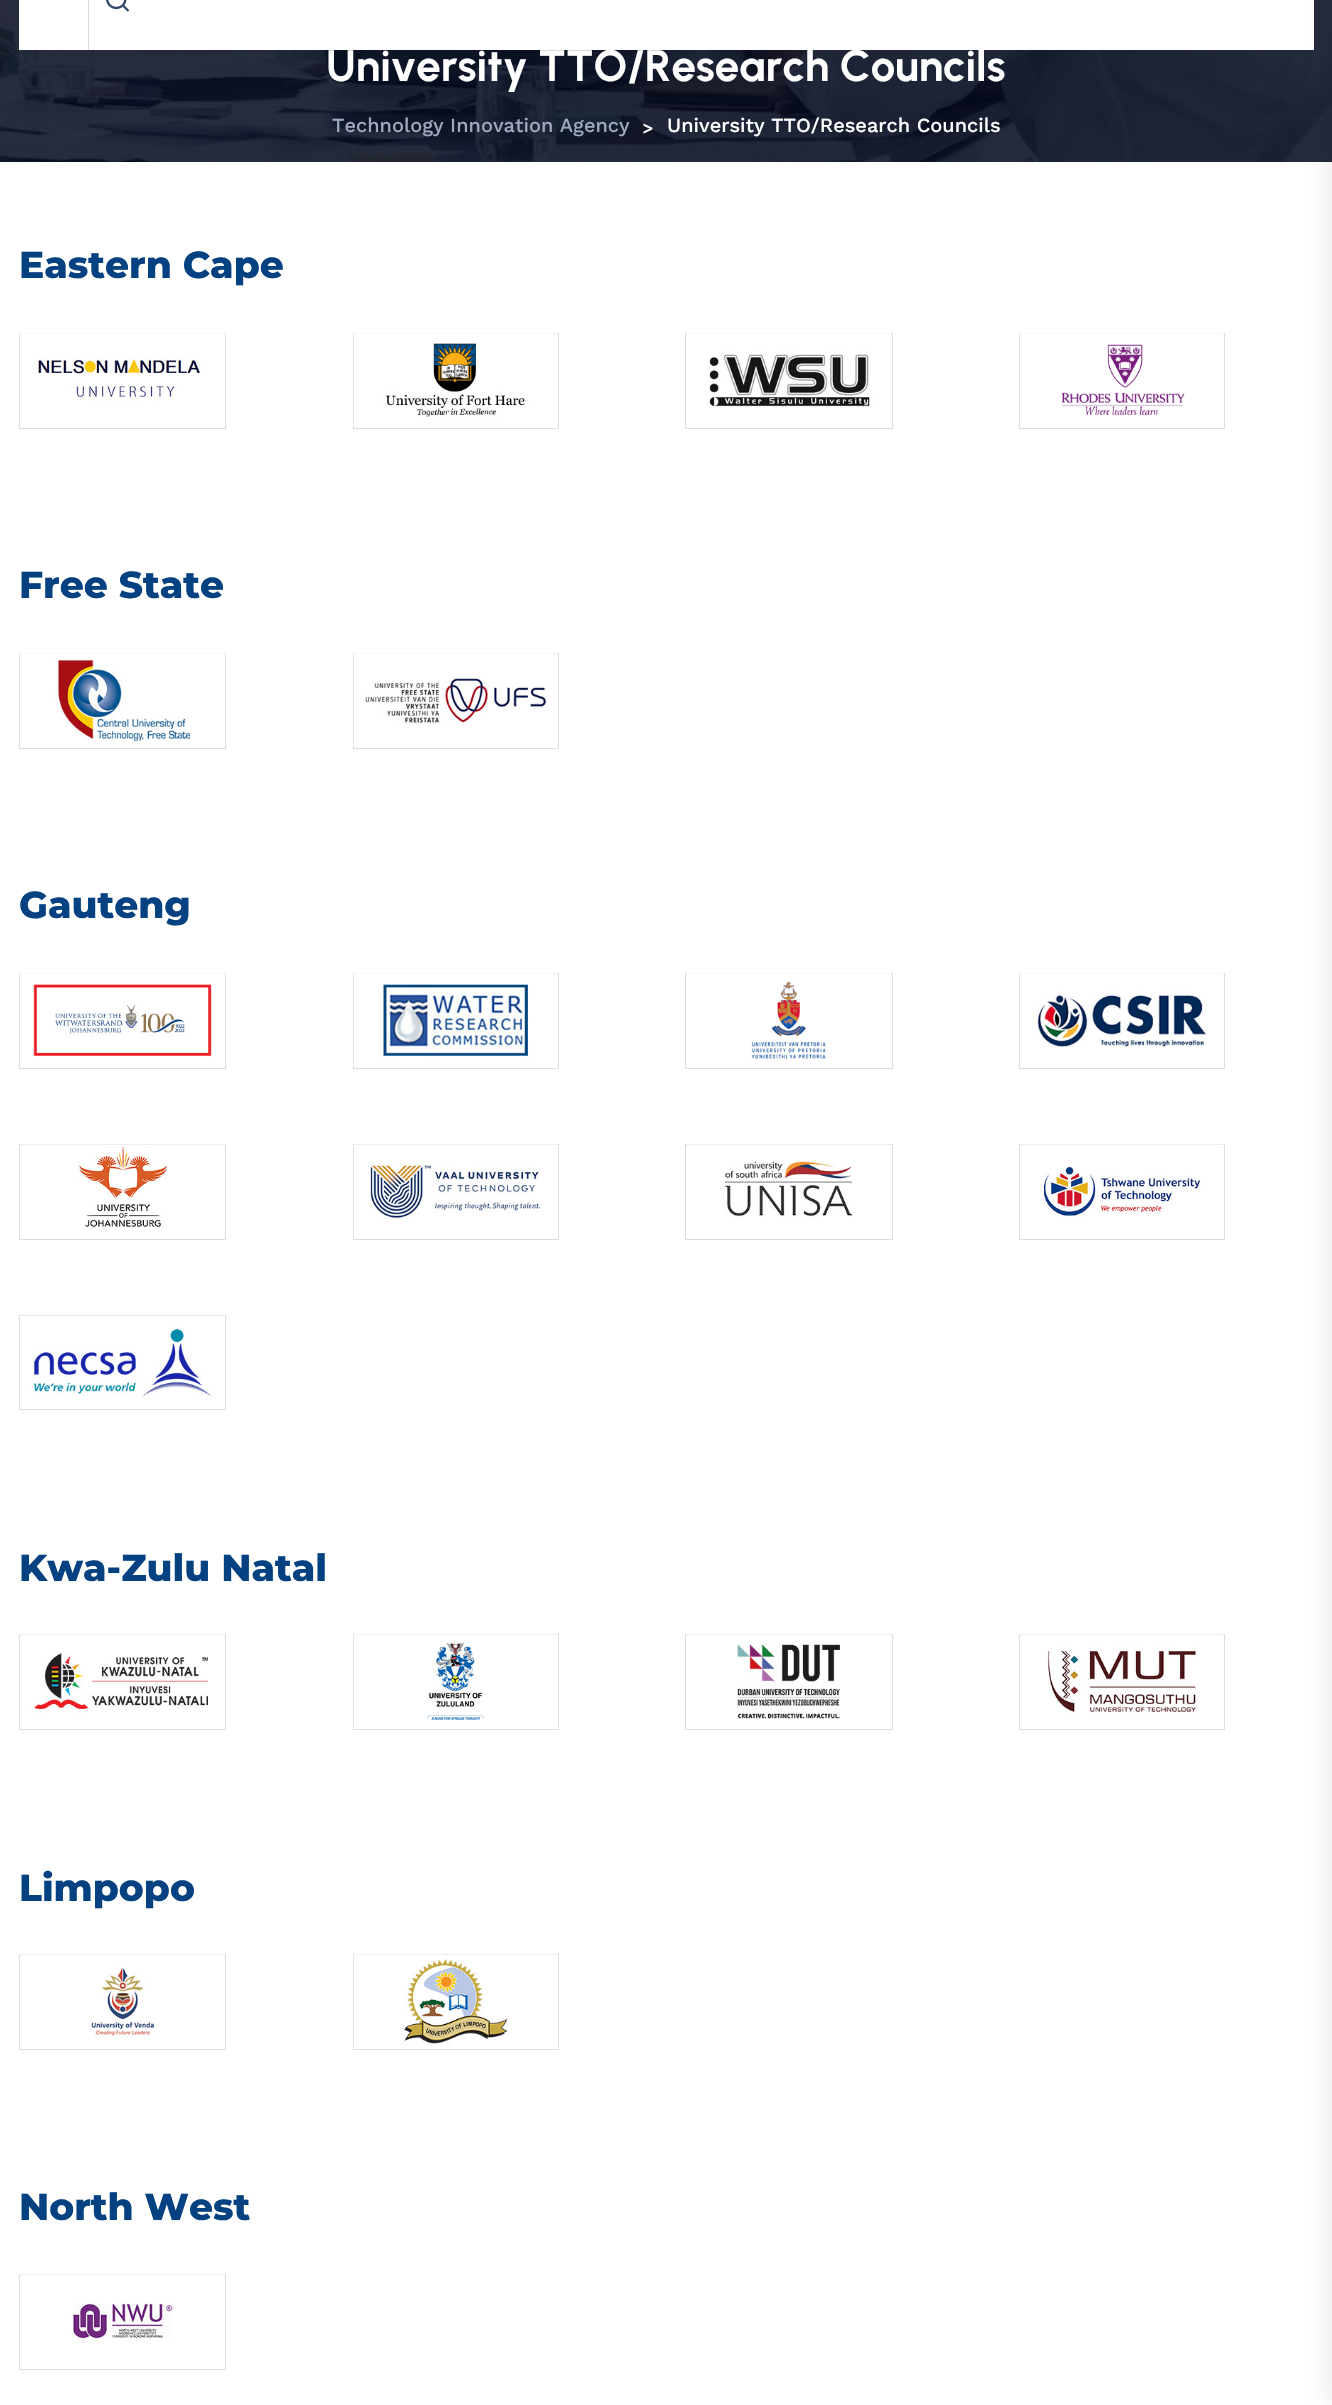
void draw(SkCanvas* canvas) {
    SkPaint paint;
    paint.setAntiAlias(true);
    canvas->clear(0xFFFFFFFF);
    canvas->drawImageRect(SkImages::DeferredFromEncodedData(SkData::MakeFromFileName("img2.png")), SkRect::MakeXYWH(0, 0, 1332, 162), SkSamplingOptions());
    paint.setColor(0xFFFFFFFF);
    canvas->drawRect(SkRect::MakeXYWH(19, 0, 1295, 50), paint);
    paint.setColor(0xFFD9D9D9);
    canvas->drawRect(SkRect::MakeXYWH(88, 0, 1, 50), paint);
    canvas->drawImageRect(SkImages::DeferredFromEncodedData(SkData::MakeFromFileName("img1.png")), SkRect::MakeXYWH(106, 0, 23, 12), SkSamplingOptions());
    paint.setColor(0x0F000000);
    paint.setMaskFilter(SkMaskFilter::MakeBlur(kNormal_SkBlurStyle, 9));
    canvas->drawRect(SkRect::MakeXYWH(1325, 0, 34, 2405), paint);
    paint.setMaskFilter(nullptr);
    SkFont font1(fontMgr->matchFamilyStyle("Urbanist", SkFontStyle::Bold()), 43.75f);
    font1.setSubpixel(true);
    paint.setColor(0xFFFFFFFF);
    canvas->drawString("University TTO/Research Councils", 326, 81, font1, paint);
    SkFont font2(fontMgr->matchFamilyStyle("Work Sans", SkFontStyle(500, SkFontStyle::kNormal_Width, SkFontStyle::kUpright_Slant)), 20);
    font2.setSubpixel(true);
    paint.setColor(0xFF9FA9BE);
    canvas->drawString("Technology Innovation Agency", 332, 132, font2, paint);
    SkFont font3(fontMgr->matchFamilyStyle("Plus Jakarta Sans", SkFontStyle(500, SkFontStyle::kNormal_Width, SkFontStyle::kUpright_Slant)), 20);
    font3.setSubpixel(true);
    paint.setColor(0xFFFFFFFF);
    canvas->drawString(">", 642, 134, font3, paint);
    canvas->drawString("University TTO/Research Councils", 667, 132, font2, paint);
    SkFont font4(fontMgr->matchFamilyStyle("Montserrat", SkFontStyle(800, SkFontStyle::kNormal_Width, SkFontStyle::kUpright_Slant)), 37.5f);
    font4.setSubpixel(true);
    paint.setColor(0xFF034181);
    canvas->drawString("Eastern Cape", 19, 278, font4, paint);
    paint.setStyle(SkPaint::kStroke_Style);
    paint.setStrokeWidth(1);
    paint.setColor(0xFFDDDDDD);
    canvas->drawRect(SkRect::MakeXYWH(19.5f, 333.5f, 206, 95), paint);
    canvas->drawImageRect(SkImages::DeferredFromEncodedData(SkData::MakeFromFileName("img3.png")), SkRect::MakeXYWH(20, 333, 205, 68), SkSamplingOptions());
    canvas->drawRect(SkRect::MakeXYWH(353.5f, 333.5f, 205, 95), paint);
    canvas->drawImageRect(SkImages::DeferredFromEncodedData(SkData::MakeFromFileName("img4.png")), SkRect::MakeXYWH(353, 333, 205, 94), SkSamplingOptions());
    canvas->drawRect(SkRect::MakeXYWH(685.5f, 333.5f, 207, 95), paint);
    canvas->drawImageRect(SkImages::DeferredFromEncodedData(SkData::MakeFromFileName("img5.png")), SkRect::MakeXYWH(686, 333, 206, 74), SkSamplingOptions());
    canvas->drawRect(SkRect::MakeXYWH(1019.5f, 333.5f, 205, 95), paint);
    canvas->drawImageRect(SkImages::DeferredFromEncodedData(SkData::MakeFromFileName("img6.png")), SkRect::MakeXYWH(1020, 333, 204, 82), SkSamplingOptions());
    paint.setStyle(SkPaint::kFill_Style);
    paint.setColor(0xFF034181);
    canvas->drawString("Free State", 19, 598, font4, paint);
    paint.setStyle(SkPaint::kStroke_Style);
    paint.setColor(0xFFDDDDDD);
    canvas->drawRect(SkRect::MakeXYWH(19.5f, 653.5f, 206, 95), paint);
    canvas->drawImageRect(SkImages::DeferredFromEncodedData(SkData::MakeFromFileName("img7.png")), SkRect::MakeXYWH(20, 653, 205, 91), SkSamplingOptions());
    canvas->drawRect(SkRect::MakeXYWH(353.5f, 653.5f, 205, 95), paint);
    canvas->drawImageRect(SkImages::DeferredFromEncodedData(SkData::MakeFromFileName("img8.png")), SkRect::MakeXYWH(353, 653, 205, 94), SkSamplingOptions());
    paint.setStyle(SkPaint::kFill_Style);
    paint.setColor(0xFF034181);
    canvas->drawString("Gauteng", 19, 918, font4, paint);
    paint.setStyle(SkPaint::kStroke_Style);
    paint.setColor(0xFFDDDDDD);
    canvas->drawRect(SkRect::MakeXYWH(19.5f, 973.5f, 206, 95), paint);
    canvas->drawImageRect(SkImages::DeferredFromEncodedData(SkData::MakeFromFileName("img9.png")), SkRect::MakeXYWH(20, 973, 205, 85), SkSamplingOptions());
    canvas->drawRect(SkRect::MakeXYWH(353.5f, 973.5f, 205, 95), paint);
    canvas->drawImageRect(SkImages::DeferredFromEncodedData(SkData::MakeFromFileName("img10.png")), SkRect::MakeXYWH(353, 973, 205, 94), SkSamplingOptions());
    canvas->drawRect(SkRect::MakeXYWH(685.5f, 973.5f, 207, 95), paint);
    canvas->drawImageRect(SkImages::DeferredFromEncodedData(SkData::MakeFromFileName("img11.png")), SkRect::MakeXYWH(686, 973, 206, 86), SkSamplingOptions());
    canvas->drawRect(SkRect::MakeXYWH(1019.5f, 973.5f, 205, 95), paint);
    canvas->drawImageRect(SkImages::DeferredFromEncodedData(SkData::MakeFromFileName("img12.png")), SkRect::MakeXYWH(1020, 973, 204, 74), SkSamplingOptions());
    canvas->drawRect(SkRect::MakeXYWH(19.5f, 1144.5f, 206, 95), paint);
    canvas->drawImageRect(SkImages::DeferredFromEncodedData(SkData::MakeFromFileName("img13.png")), SkRect::MakeXYWH(20, 1144, 205, 85), SkSamplingOptions());
    canvas->drawRect(SkRect::MakeXYWH(353.5f, 1144.5f, 205, 95), paint);
    canvas->drawImageRect(SkImages::DeferredFromEncodedData(SkData::MakeFromFileName("img14.png")), SkRect::MakeXYWH(353, 1144, 205, 94), SkSamplingOptions());
    canvas->drawRect(SkRect::MakeXYWH(685.5f, 1144.5f, 207, 95), paint);
    canvas->drawImageRect(SkImages::DeferredFromEncodedData(SkData::MakeFromFileName("img15.png")), SkRect::MakeXYWH(686, 1144, 206, 73), SkSamplingOptions());
    canvas->drawRect(SkRect::MakeXYWH(1019.5f, 1144.5f, 205, 95), paint);
    canvas->drawImageRect(SkImages::DeferredFromEncodedData(SkData::MakeFromFileName("img16.png")), SkRect::MakeXYWH(1020, 1144, 204, 74), SkSamplingOptions());
    canvas->drawRect(SkRect::MakeXYWH(19.5f, 1315.5f, 206, 94), paint);
    canvas->drawImageRect(SkImages::DeferredFromEncodedData(SkData::MakeFromFileName("img17.png")), SkRect::MakeXYWH(20, 1315, 205, 85), SkSamplingOptions());
    paint.setStyle(SkPaint::kFill_Style);
    paint.setColor(0xFF034181);
    canvas->drawString("Kwa-Zulu Natal", 19, 1581, font4, paint);
    paint.setStyle(SkPaint::kStroke_Style);
    paint.setColor(0xFFDDDDDD);
    canvas->drawRect(SkRect::MakeXYWH(19.5f, 1634.5f, 206, 95), paint);
    canvas->drawImageRect(SkImages::DeferredFromEncodedData(SkData::MakeFromFileName("img18.png")), SkRect::MakeXYWH(20, 1634, 205, 80), SkSamplingOptions());
    canvas->drawRect(SkRect::MakeXYWH(353.5f, 1634.5f, 205, 95), paint);
    canvas->drawImageRect(SkImages::DeferredFromEncodedData(SkData::MakeFromFileName("img19.png")), SkRect::MakeXYWH(353, 1634, 205, 94), SkSamplingOptions());
    canvas->drawRect(SkRect::MakeXYWH(685.5f, 1634.5f, 207, 95), paint);
    canvas->drawImageRect(SkImages::DeferredFromEncodedData(SkData::MakeFromFileName("img20.png")), SkRect::MakeXYWH(686, 1634, 206, 85), SkSamplingOptions());
    canvas->drawRect(SkRect::MakeXYWH(1019.5f, 1634.5f, 205, 95), paint);
    canvas->drawImageRect(SkImages::DeferredFromEncodedData(SkData::MakeFromFileName("img21.png")), SkRect::MakeXYWH(1020, 1634, 204, 80), SkSamplingOptions());
    paint.setStyle(SkPaint::kFill_Style);
    paint.setColor(0xFF034181);
    canvas->drawString("Limpopo", 19, 1901, font4, paint);
    paint.setStyle(SkPaint::kStroke_Style);
    paint.setColor(0xFFDDDDDD);
    canvas->drawRect(SkRect::MakeXYWH(19.5f, 1954.5f, 206, 95), paint);
    canvas->drawImageRect(SkImages::DeferredFromEncodedData(SkData::MakeFromFileName("img22.png")), SkRect::MakeXYWH(20, 1954, 205, 86), SkSamplingOptions());
    canvas->drawRect(SkRect::MakeXYWH(353.5f, 1954.5f, 205, 95), paint);
    canvas->drawImageRect(SkImages::DeferredFromEncodedData(SkData::MakeFromFileName("img23.png")), SkRect::MakeXYWH(353, 1954, 205, 94), SkSamplingOptions());
    paint.setStyle(SkPaint::kFill_Style);
    paint.setColor(0xFF034181);
    canvas->drawString("North West", 19, 2220, font4, paint);
    paint.setStyle(SkPaint::kStroke_Style);
    paint.setColor(0xFFDDDDDD);
    canvas->drawRect(SkRect::MakeXYWH(19.5f, 2274.5f, 206, 95), paint);
    canvas->drawImageRect(SkImages::DeferredFromEncodedData(SkData::MakeFromFileName("img24.png")), SkRect::MakeXYWH(20, 2274, 205, 67), SkSamplingOptions());
}
